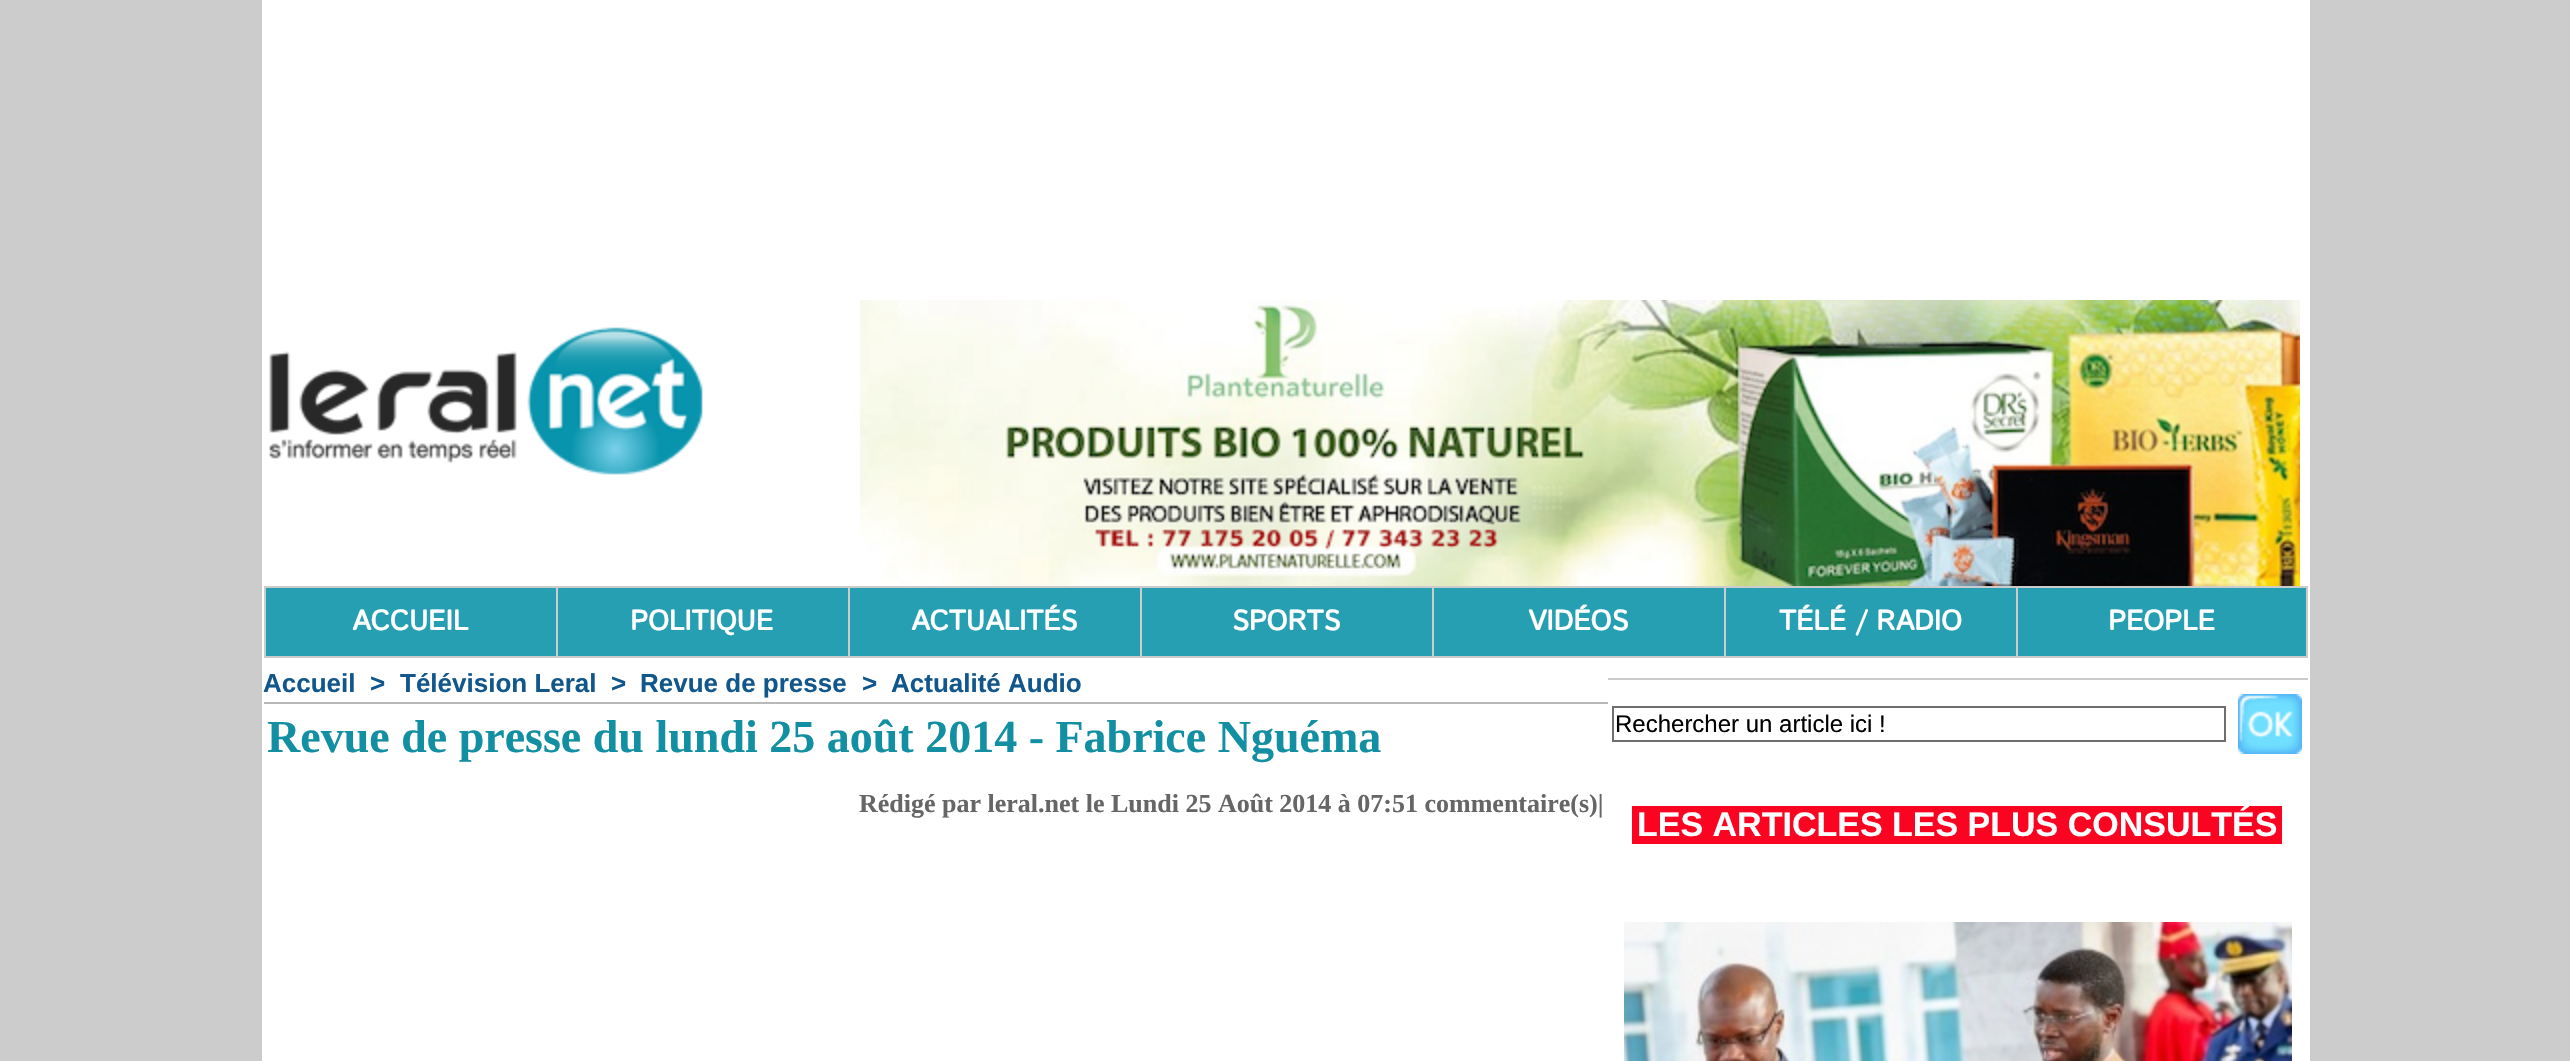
void draw(SkCanvas* canvas) {
    SkPaint paint;
    paint.setAntiAlias(true);
    canvas->clear(0xFFCCCCCC);
    paint.setColor(0xFFFFFFFF);
    canvas->drawRect(SkRect::MakeXYWH(2308, 0, 2, 1061), paint);
    canvas->drawRect(SkRect::MakeXYWH(262, 0, 2046, 1061), paint);
    canvas->drawImageRect(SkImages::DeferredFromEncodedData(SkData::MakeFromFileName("img1.png")), SkRect::MakeXYWH(269, 327, 434, 148), SkSamplingOptions());
    canvas->drawImageRect(SkImages::DeferredFromEncodedData(SkData::MakeFromFileName("img2.png")), SkRect::MakeXYWH(860, 300, 1440, 286), SkSamplingOptions());
    paint.setColor(0xFFCCCCCC);
    canvas->drawRect(SkRect::MakeXYWH(264, 586, 2044, 2), paint);
    paint.setColor(0xFF279FB2);
    canvas->drawRect(SkRect::MakeXYWH(266, 588, 2040, 68), paint);
    paint.setColor(0xFFCCCCCC);
    canvas->drawRect(SkRect::MakeXYWH(2306, 588, 2, 70), paint);
    canvas->drawRect(SkRect::MakeXYWH(264, 656, 2044, 2), paint);
    canvas->drawRect(SkRect::MakeXYWH(264, 588, 2, 70), paint);
    canvas->drawRect(SkRect::MakeXYWH(556, 588, 2, 68), paint);
    SkFont font1(fontMgr->matchFamilyStyle("Istok Web", SkFontStyle::Bold()), 28);
    font1.setSubpixel(true);
    paint.setColor(0xFFFFFFFF);
    canvas->drawString("ACCUEIL", 352, 630, font1, paint);
    paint.setColor(0xFFCCCCCC);
    canvas->drawRect(SkRect::MakeXYWH(848, 588, 2, 68), paint);
    paint.setColor(0xFFFFFFFF);
    canvas->drawString("POLITIQUE", 630, 630, font1, paint);
    paint.setColor(0xFFCCCCCC);
    canvas->drawRect(SkRect::MakeXYWH(1140, 588, 2, 68), paint);
    paint.setColor(0xFFFFFFFF);
    canvas->drawString("ACTUALITÉS", 911, 630, font1, paint);
    paint.setColor(0xFFCCCCCC);
    canvas->drawRect(SkRect::MakeXYWH(1432, 588, 2, 68), paint);
    paint.setColor(0xFFFFFFFF);
    canvas->drawString("SPORTS", 1232, 630, font1, paint);
    paint.setColor(0xFFCCCCCC);
    canvas->drawRect(SkRect::MakeXYWH(1724, 588, 2, 68), paint);
    paint.setColor(0xFFFFFFFF);
    canvas->drawString("VIDÉOS", 1528, 630, font1, paint);
    paint.setColor(0xFFCCCCCC);
    canvas->drawRect(SkRect::MakeXYWH(2016, 588, 2, 68), paint);
    paint.setColor(0xFFFFFFFF);
    canvas->drawString("TÉLÉ / RADIO", 1779, 630, font1, paint);
    canvas->drawString("PEOPLE", 2108, 630, font1, paint);
    SkFont font2(fontMgr->matchFamilyStyle("Liberation Sans", SkFontStyle::Bold()), 26);
    font2.setSubpixel(true);
    paint.setColor(0xFF12578C);
    canvas->drawString("Accueil", 263, 692, font2, paint);
    canvas->drawString(">", 370, 692, font2, paint);
    canvas->drawString("Télévision Leral", 400, 692, font2, paint);
    canvas->drawString(">", 611, 692, font2, paint);
    canvas->drawString("Revue de presse", 640, 692, font2, paint);
    canvas->drawString(">", 862, 692, font2, paint);
    canvas->drawString("Actualité Audio", 891, 692, font2, paint);
    paint.setColor(0xFFB9B9B9);
    canvas->drawRect(SkRect::MakeXYWH(264, 702, 1344, 2), paint);
    SkFont font3(fontMgr->matchFamilyStyle("Liberation Serif", SkFontStyle::Bold()), 46);
    font3.setSubpixel(true);
    paint.setColor(0xFF128FA2);
    canvas->drawString("Revue de presse du lundi 25 août 2014 - Fabrice Nguéma", 267, 752, font3, paint);
    SkFont font4(fontMgr->matchFamilyStyle("Liberation Serif", SkFontStyle::Bold()), 26);
    font4.setSubpixel(true);
    paint.setColor(0xFF666666);
    canvas->drawString("Rédigé par leral.net le Lundi 25 Août 2014 à 07:51 commentaire(s)|", 859, 812, font4, paint);
    paint.setColor(0xFFCCCCCC);
    canvas->drawRect(SkRect::MakeXYWH(1608, 678, 700, 2), paint);
    paint.setStyle(SkPaint::kStroke_Style);
    paint.setStrokeWidth(2);
    paint.setColor(0xFF716D6D);
    canvas->drawRect(SkRect::MakeXYWH(1613, 707, 612, 34), paint);
    SkFont font5(fontMgr->matchFamilyStyle("Liberation Sans", SkFontStyle::Normal()), 24);
    font5.setSubpixel(true);
    paint.setStyle(SkPaint::kFill_Style);
    paint.setColor(0xFF000000);
    canvas->drawString("Rechercher un article ici !", 1615, 732, font5, paint);
    canvas->drawImageRect(SkImages::DeferredFromEncodedData(SkData::MakeFromFileName("img3.png")), SkRect::MakeXYWH(2238, 694, 64, 60), SkSamplingOptions());
    paint.setColor(0xFFFB0421);
    canvas->drawRect(SkRect::MakeXYWH(1632, 806, 650, 38), paint);
    SkFont font6(fontMgr->matchFamilyStyle("Liberation Sans", SkFontStyle::Bold()), 34);
    font6.setSubpixel(true);
    paint.setColor(0xFFFFFFFF);
    canvas->drawString("LES ARTICLES LES PLUS CONSULTÉS", 1637, 836, font6, paint);
    canvas->drawImageRect(SkImages::DeferredFromEncodedData(SkData::MakeFromFileName("img4.png")), SkRect::MakeXYWH(1624, 922, 668, 139), SkSamplingOptions());
}
